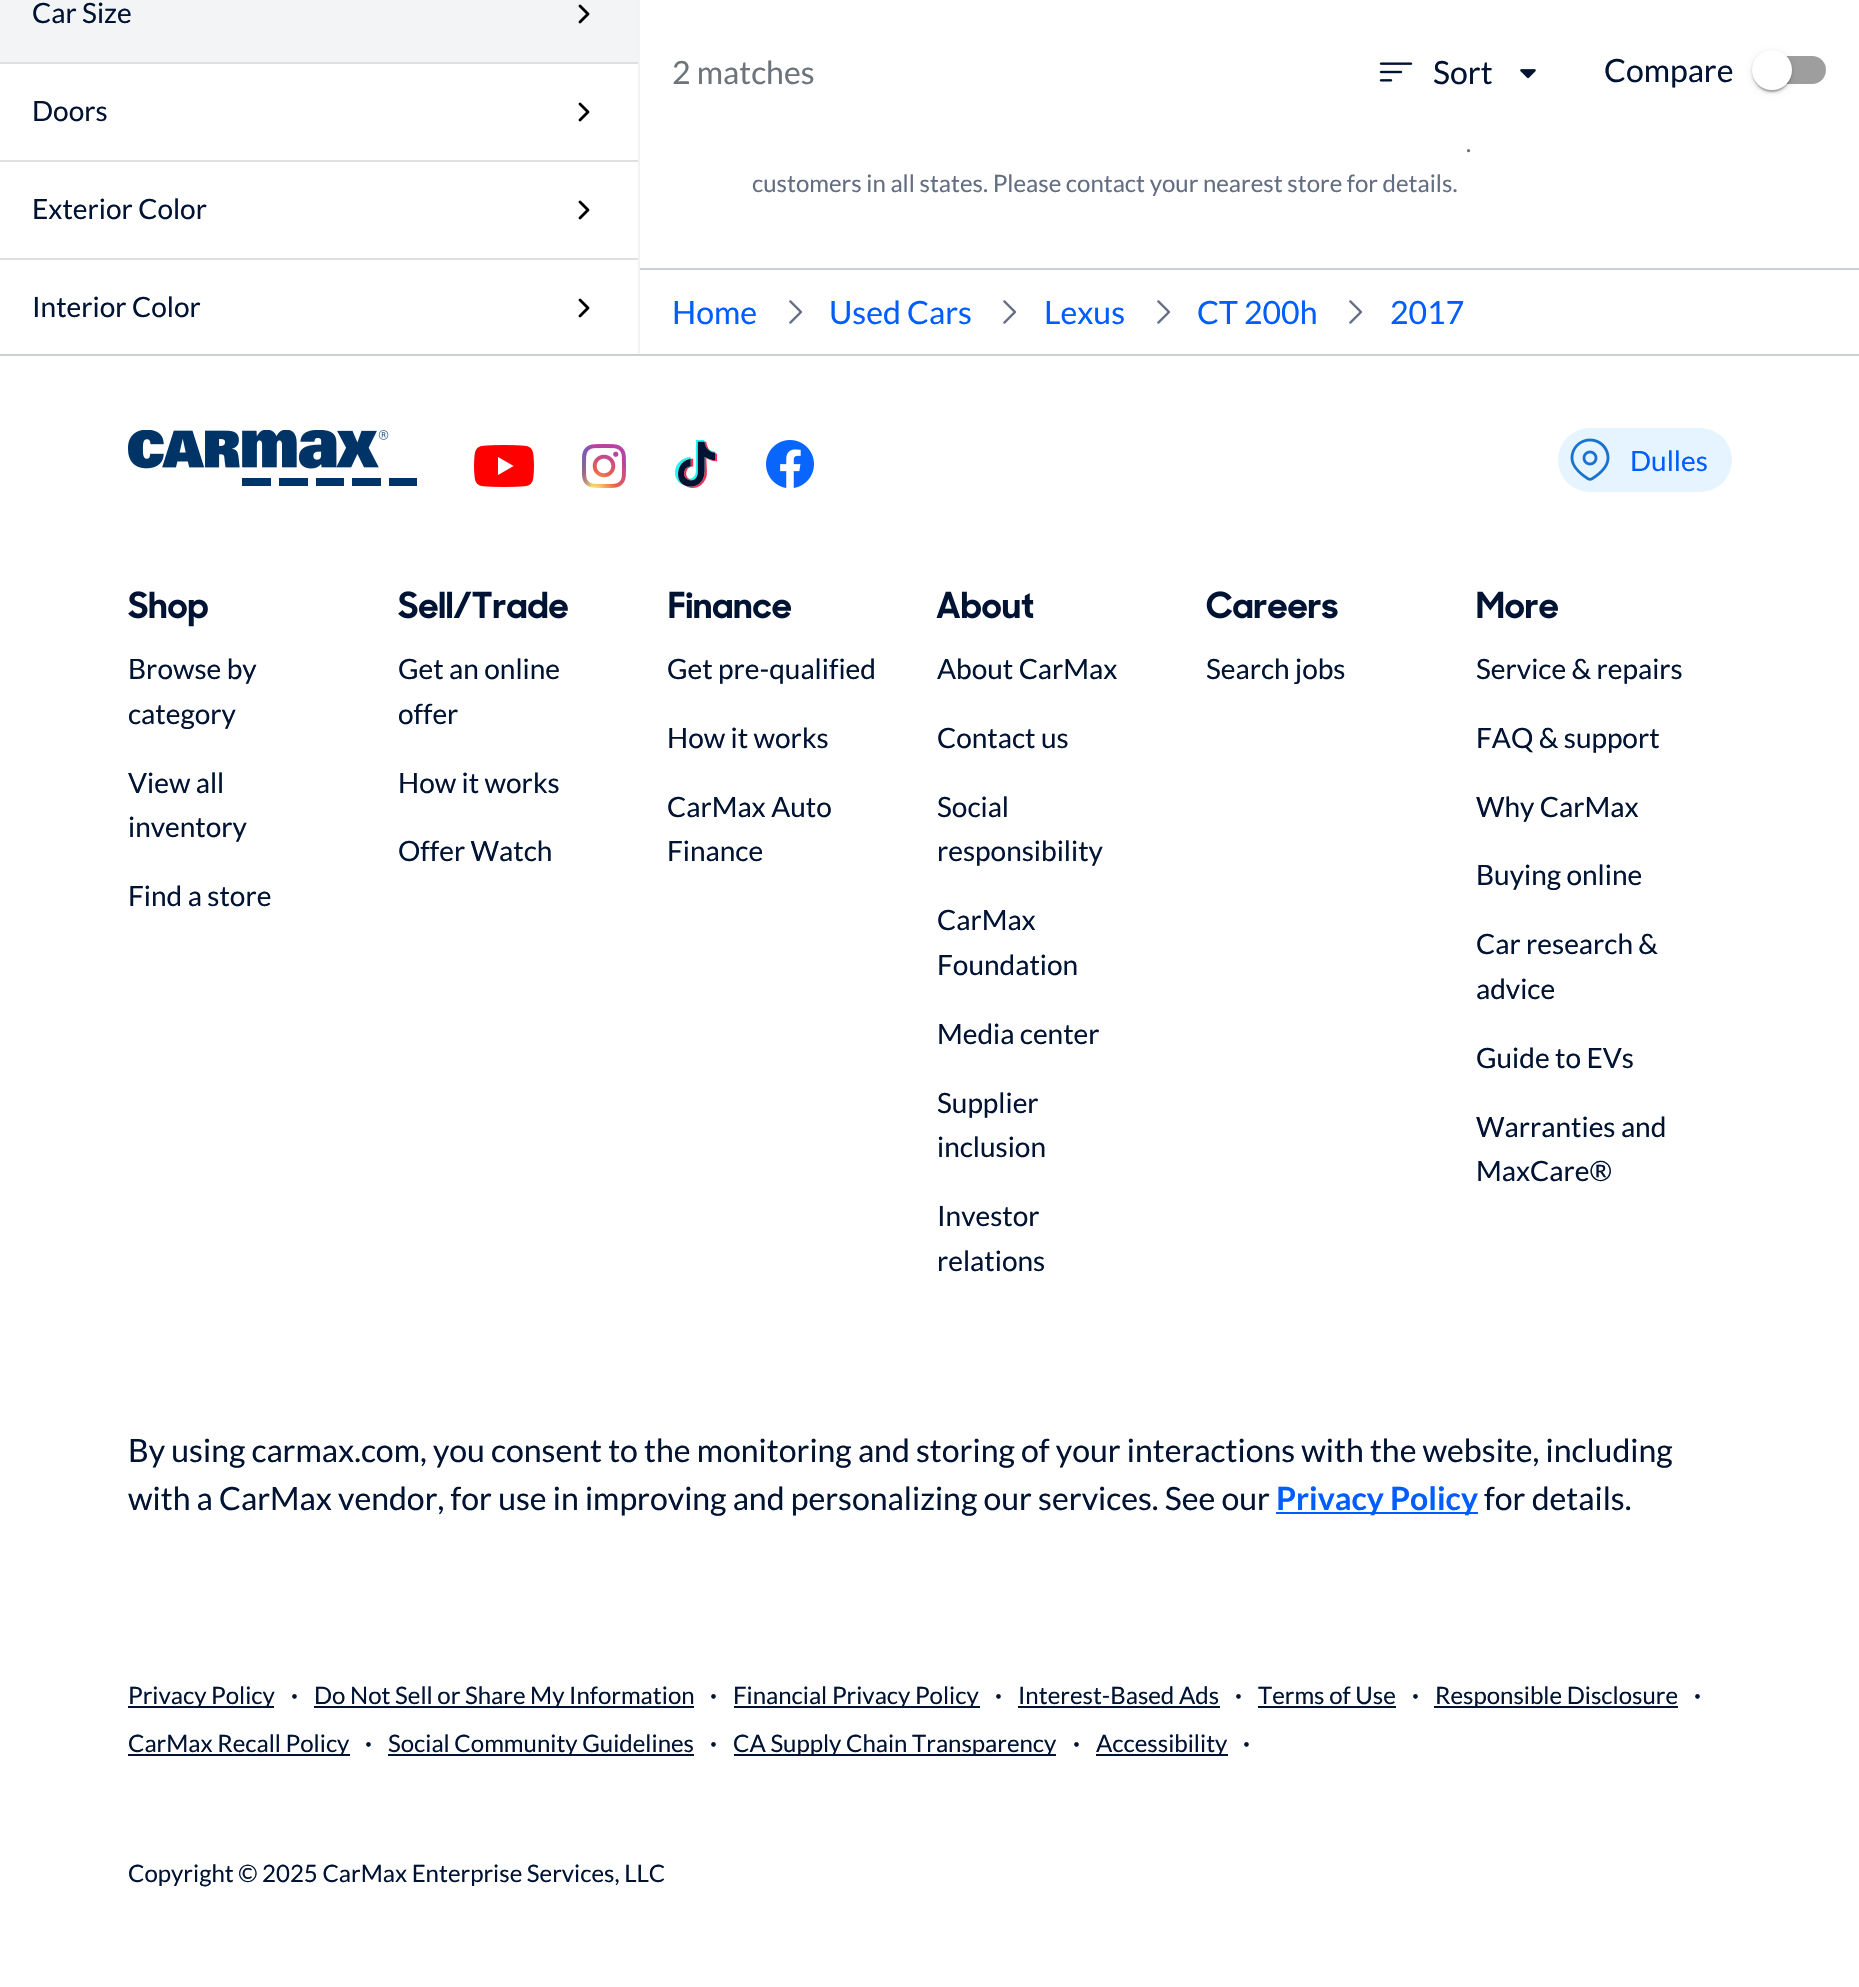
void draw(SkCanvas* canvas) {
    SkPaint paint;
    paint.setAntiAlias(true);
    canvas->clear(0xFFFFFFFF);
    paint.setColor(0xFFF2F3F5);
    canvas->drawRect(SkRect::MakeXYWH(638, 0, 2, 354), paint);
    paint.setColor(0xFFF3F4F5);
    canvas->drawRect(SkRect::MakeXYWH(0, 0, 638, 62), paint);
    SkFont font1(fontMgr->matchFamilyStyle("Lato", SkFontStyle::Normal()), 28);
    font1.setSubpixel(true);
    paint.setColor(0xFF001333);
    canvas->drawString("Car Size", 32, 23, font1, paint);
    canvas->drawImageRect(SkImages::DeferredFromEncodedData(SkData::MakeFromFileName("img1.png")), SkRect::MakeXYWH(578, 4, 12, 20), SkSamplingOptions());
    paint.setColor(0xFFDEDFE0);
    canvas->drawRect(SkRect::MakeXYWH(0, 62, 638, 2), paint);
    paint.setColor(0xFF001333);
    canvas->drawString("Doors", 32, 121, font1, paint);
    canvas->drawImageRect(SkImages::DeferredFromEncodedData(SkData::MakeFromFileName("img2.png")), SkRect::MakeXYWH(578, 102, 12, 20), SkSamplingOptions());
    paint.setColor(0xFFDEDFE0);
    canvas->drawRect(SkRect::MakeXYWH(0, 160, 638, 2), paint);
    paint.setColor(0xFF001333);
    canvas->drawString("Exterior Color", 32, 219, font1, paint);
    canvas->drawImageRect(SkImages::DeferredFromEncodedData(SkData::MakeFromFileName("img2.png")), SkRect::MakeXYWH(578, 200, 12, 20), SkSamplingOptions());
    paint.setColor(0xFFDEDFE0);
    canvas->drawRect(SkRect::MakeXYWH(0, 258, 638, 2), paint);
    paint.setColor(0xFF001333);
    canvas->drawString("Interior Color", 32, 317, font1, paint);
    canvas->drawImageRect(SkImages::DeferredFromEncodedData(SkData::MakeFromFileName("img2.png")), SkRect::MakeXYWH(578, 298, 12, 20), SkSamplingOptions());
    SkFont font2(fontMgr->matchFamilyStyle("Lato", SkFontStyle::Normal()), 32);
    font2.setSubpixel(true);
    paint.setColor(0xFF6D747A);
    canvas->drawString("2 matches", 672, 84, font2, paint);
    canvas->drawImageRect(SkImages::DeferredFromEncodedData(SkData::MakeFromFileName("img3.png")), SkRect::MakeXYWH(1379, 62, 34, 20), SkSamplingOptions());
    paint.setColor(0xFF001333);
    canvas->drawString("Sort", 1433, 84, font2, paint);
    canvas->drawImageRect(SkImages::DeferredFromEncodedData(SkData::MakeFromFileName("img4.png")), SkRect::MakeXYWH(1520, 69, 16, 10), SkSamplingOptions());
    canvas->drawString("Compare", 1604, 82, font2, paint);
    paint.setColor(0xFF9E9E9E);
    canvas->drawRoundRect(SkRect::MakeXYWH(1758, 56, 68, 28), 14, 14, paint);
    paint.setColor(0x1F000000);
    paint.setMaskFilter(SkMaskFilter::MakeBlur(kNormal_SkBlurStyle, 3));
    canvas->drawRoundRect(SkRect::MakeXYWH(1752, 52, 40, 40), 20, 20, paint);
    paint.setMaskFilter(nullptr);
    paint.setColor(0x24000000);
    paint.setMaskFilter(SkMaskFilter::MakeBlur(kNormal_SkBlurStyle, 1));
    canvas->drawRoundRect(SkRect::MakeXYWH(1752, 52, 40, 40), 20, 20, paint);
    paint.setMaskFilter(nullptr);
    paint.setColor(0x33000000);
    paint.setMaskFilter(SkMaskFilter::MakeBlur(kNormal_SkBlurStyle, 1));
    canvas->drawRoundRect(SkRect::MakeXYWH(1754, 56, 36, 36), 18, 18, paint);
    paint.setMaskFilter(nullptr);
    paint.setColor(0xFFFFFFFF);
    canvas->drawCircle(1772, 70, 20, paint);
    SkFont font3(fontMgr->matchFamilyStyle("Lato", SkFontStyle::Normal()), 24);
    font3.setSubpixel(true);
    paint.setColor(0xFF646E82);
    canvas->drawString(".", 1466, 152, font3, paint);
    canvas->drawString("customers in all states. Please contact your nearest store for details.", 752, 192, font3, paint);
    paint.setColor(0xFFCCD0D6);
    canvas->drawRect(SkRect::MakeXYWH(640, 268, 1219, 2), paint);
    paint.setColor(0xFF005DFF);
    canvas->drawString("Home", 672, 324, font2, paint);
    canvas->drawImageRect(SkImages::DeferredFromEncodedData(SkData::MakeFromFileName("img5.png")), SkRect::MakeXYWH(789, 300, 14, 24), SkSamplingOptions());
    canvas->drawString("Used Cars", 829, 324, font2, paint);
    canvas->drawImageRect(SkImages::DeferredFromEncodedData(SkData::MakeFromFileName("img5.png")), SkRect::MakeXYWH(1003, 300, 14, 24), SkSamplingOptions());
    canvas->drawString("Lexus", 1044, 324, font2, paint);
    canvas->drawImageRect(SkImages::DeferredFromEncodedData(SkData::MakeFromFileName("img5.png")), SkRect::MakeXYWH(1157, 300, 14, 24), SkSamplingOptions());
    canvas->drawString("CT 200h", 1197, 324, font2, paint);
    canvas->drawImageRect(SkImages::DeferredFromEncodedData(SkData::MakeFromFileName("img5.png")), SkRect::MakeXYWH(1349, 300, 14, 24), SkSamplingOptions());
    canvas->drawString("2017", 1390, 324, font2, paint);
    paint.setColor(0xFFCCD0D6);
    canvas->drawRect(SkRect::MakeXYWH(0, 354, 1859, 2), paint);
    canvas->drawImageRect(SkImages::DeferredFromEncodedData(SkData::MakeFromFileName("img6.png")), SkRect::MakeXYWH(128, 430, 289, 56), SkSamplingOptions());
    canvas->drawImageRect(SkImages::DeferredFromEncodedData(SkData::MakeFromFileName("img7.png")), SkRect::MakeXYWH(474, 445, 60, 42), SkSamplingOptions());
    canvas->drawImageRect(SkImages::DeferredFromEncodedData(SkData::MakeFromFileName("img8.png")), SkRect::MakeXYWH(582, 444, 44, 44), SkSamplingOptions());
    canvas->drawImageRect(SkImages::DeferredFromEncodedData(SkData::MakeFromFileName("img9.png")), SkRect::MakeXYWH(675, 440, 42, 48), SkSamplingOptions());
    canvas->drawImageRect(SkImages::DeferredFromEncodedData(SkData::MakeFromFileName("img10.png")), SkRect::MakeXYWH(766, 440, 48, 48), SkSamplingOptions());
    paint.setColor(0xFFE6F4FF);
    canvas->drawRoundRect(SkRect::MakeXYWH(1558, 428, 174, 64), 32, 32, paint);
    canvas->drawImageRect(SkImages::DeferredFromEncodedData(SkData::MakeFromFileName("img11.png")), SkRect::MakeXYWH(1570, 438, 40, 43), SkSamplingOptions());
    paint.setColor(0xFF005DFF);
    canvas->drawString("Dulles", 1630, 471, font1, paint);
    canvas->drawImageRect(SkImages::DeferredFromEncodedData(SkData::MakeFromFileName("img12.png")), SkRect::MakeXYWH(128, 591, 80, 36), SkSamplingOptions());
    paint.setColor(0xFF001333);
    canvas->drawString("Browse by", 128, 679, font1, paint);
    canvas->drawString("category", 128, 724, font1, paint);
    canvas->drawString("View all", 128, 793, font1, paint);
    canvas->drawString("inventory", 128, 837, font1, paint);
    canvas->drawString("Find a store", 128, 906, font1, paint);
    canvas->drawImageRect(SkImages::DeferredFromEncodedData(SkData::MakeFromFileName("img13.png")), SkRect::MakeXYWH(398, 591, 170, 28), SkSamplingOptions());
    canvas->drawString("Get an online", 398, 679, font1, paint);
    canvas->drawString("offer", 398, 724, font1, paint);
    canvas->drawString("How it works", 398, 793, font1, paint);
    canvas->drawString("Offer Watch", 398, 861, font1, paint);
    canvas->drawImageRect(SkImages::DeferredFromEncodedData(SkData::MakeFromFileName("img14.png")), SkRect::MakeXYWH(669, 591, 123, 28), SkSamplingOptions());
    canvas->drawString("Get pre-qualified", 667, 679, font1, paint);
    canvas->drawString("How it works", 667, 748, font1, paint);
    canvas->drawString("CarMax Auto", 667, 817, font1, paint);
    canvas->drawString("Finance", 667, 861, font1, paint);
    canvas->drawImageRect(SkImages::DeferredFromEncodedData(SkData::MakeFromFileName("img15.png")), SkRect::MakeXYWH(936, 591, 98, 28), SkSamplingOptions());
    canvas->drawString("About CarMax", 937, 679, font1, paint);
    canvas->drawString("Contact us", 937, 748, font1, paint);
    canvas->drawString("Social", 937, 817, font1, paint);
    canvas->drawString("responsibility", 937, 861, font1, paint);
    canvas->drawString("CarMax", 937, 930, font1, paint);
    canvas->drawString("Foundation", 937, 975, font1, paint);
    canvas->drawString("Media center", 937, 1044, font1, paint);
    canvas->drawString("Supplier", 937, 1113, font1, paint);
    canvas->drawString("inclusion", 937, 1157, font1, paint);
    canvas->drawString("Investor", 937, 1226, font1, paint);
    canvas->drawString("relations", 937, 1271, font1, paint);
    canvas->drawImageRect(SkImages::DeferredFromEncodedData(SkData::MakeFromFileName("img16.png")), SkRect::MakeXYWH(1206, 591, 132, 28), SkSamplingOptions());
    canvas->drawString("Search jobs", 1206, 679, font1, paint);
    canvas->drawImageRect(SkImages::DeferredFromEncodedData(SkData::MakeFromFileName("img17.png")), SkRect::MakeXYWH(1477, 591, 81, 28), SkSamplingOptions());
    canvas->drawString("Service & repairs", 1476, 679, font1, paint);
    canvas->drawString("FAQ & support", 1476, 748, font1, paint);
    canvas->drawString("Why CarMax", 1476, 817, font1, paint);
    canvas->drawString("Buying online", 1476, 885, font1, paint);
    canvas->drawString("Car research &", 1476, 954, font1, paint);
    canvas->drawString("advice", 1476, 999, font1, paint);
    canvas->drawString("Guide to EVs", 1476, 1068, font1, paint);
    canvas->drawString("Warranties and", 1476, 1137, font1, paint);
    canvas->drawString("MaxCare®", 1476, 1181, font1, paint);
    canvas->drawString("By using carmax.com, you consent to the monitoring and storing of your interactions with the website, including", 128, 1462, font2, paint);
    canvas->drawString("with a CarMax vendor, for use in improving and personalizing our services. See our", 128, 1510, font2, paint);
    paint.setColor(0xFF005DFF);
    canvas->drawRect(SkRect::MakeXYWH(1276, 1512, 202, 2), paint);
    SkFont font4(fontMgr->matchFamilyStyle("Lato", SkFontStyle::Bold()), 32);
    font4.setSubpixel(true);
    canvas->drawString("Privacy Policy", 1276, 1510, font4, paint);
    paint.setColor(0xFF001333);
    canvas->drawString("for details.", 1484, 1510, font2, paint);
    canvas->drawRect(SkRect::MakeXYWH(128, 1706, 146, 2), paint);
    canvas->drawString("Privacy Policy", 128, 1704, font3, paint);
    SkFont font5(fontMgr->matchFamilyStyle("Lato", SkFontStyle::Normal()), 12);
    font5.setSubpixel(true);
    canvas->drawString("•", 291, 1700, font5, paint);
    canvas->drawRect(SkRect::MakeXYWH(314, 1706, 380, 2), paint);
    canvas->drawString("Do Not Sell or Share My Information", 314, 1704, font3, paint);
    canvas->drawString("•", 710, 1700, font5, paint);
    canvas->drawRect(SkRect::MakeXYWH(734, 1706, 246, 2), paint);
    canvas->drawString("Financial Privacy Policy", 733, 1704, font3, paint);
    canvas->drawString("•", 995, 1700, font5, paint);
    canvas->drawString("Interest-Based Ads", 1018, 1704, font3, paint);
    canvas->drawRect(SkRect::MakeXYWH(1018, 1706, 202, 2), paint);
    canvas->drawString("•", 1235, 1700, font5, paint);
    canvas->drawString("Terms of Use", 1258, 1704, font3, paint);
    canvas->drawRect(SkRect::MakeXYWH(1258, 1706, 138, 2), paint);
    canvas->drawString("•", 1412, 1700, font5, paint);
    canvas->drawRect(SkRect::MakeXYWH(1434, 1706, 244, 2), paint);
    canvas->drawString("Responsible Disclosure", 1435, 1704, font3, paint);
    canvas->drawString("•", 1694, 1700, font5, paint);
    canvas->drawRect(SkRect::MakeXYWH(128, 1754, 222, 2), paint);
    canvas->drawString("CarMax Recall Policy", 128, 1752, font3, paint);
    canvas->drawString("•", 365, 1748, font5, paint);
    canvas->drawRect(SkRect::MakeXYWH(388, 1754, 306, 2), paint);
    canvas->drawString("Social Community Guidelines", 388, 1752, font3, paint);
    canvas->drawString("•", 710, 1748, font5, paint);
    canvas->drawRect(SkRect::MakeXYWH(734, 1754, 322, 2), paint);
    canvas->drawString("CA Supply Chain Transparency", 733, 1752, font3, paint);
    canvas->drawString("•", 1073, 1748, font5, paint);
    canvas->drawRect(SkRect::MakeXYWH(1096, 1754, 132, 2), paint);
    canvas->drawString("Accessibility", 1096, 1752, font3, paint);
    canvas->drawString("•", 1243, 1748, font5, paint);
    canvas->drawString("Copyright © 2025 CarMax Enterprise Services, LLC", 128, 1882, font3, paint);
}
